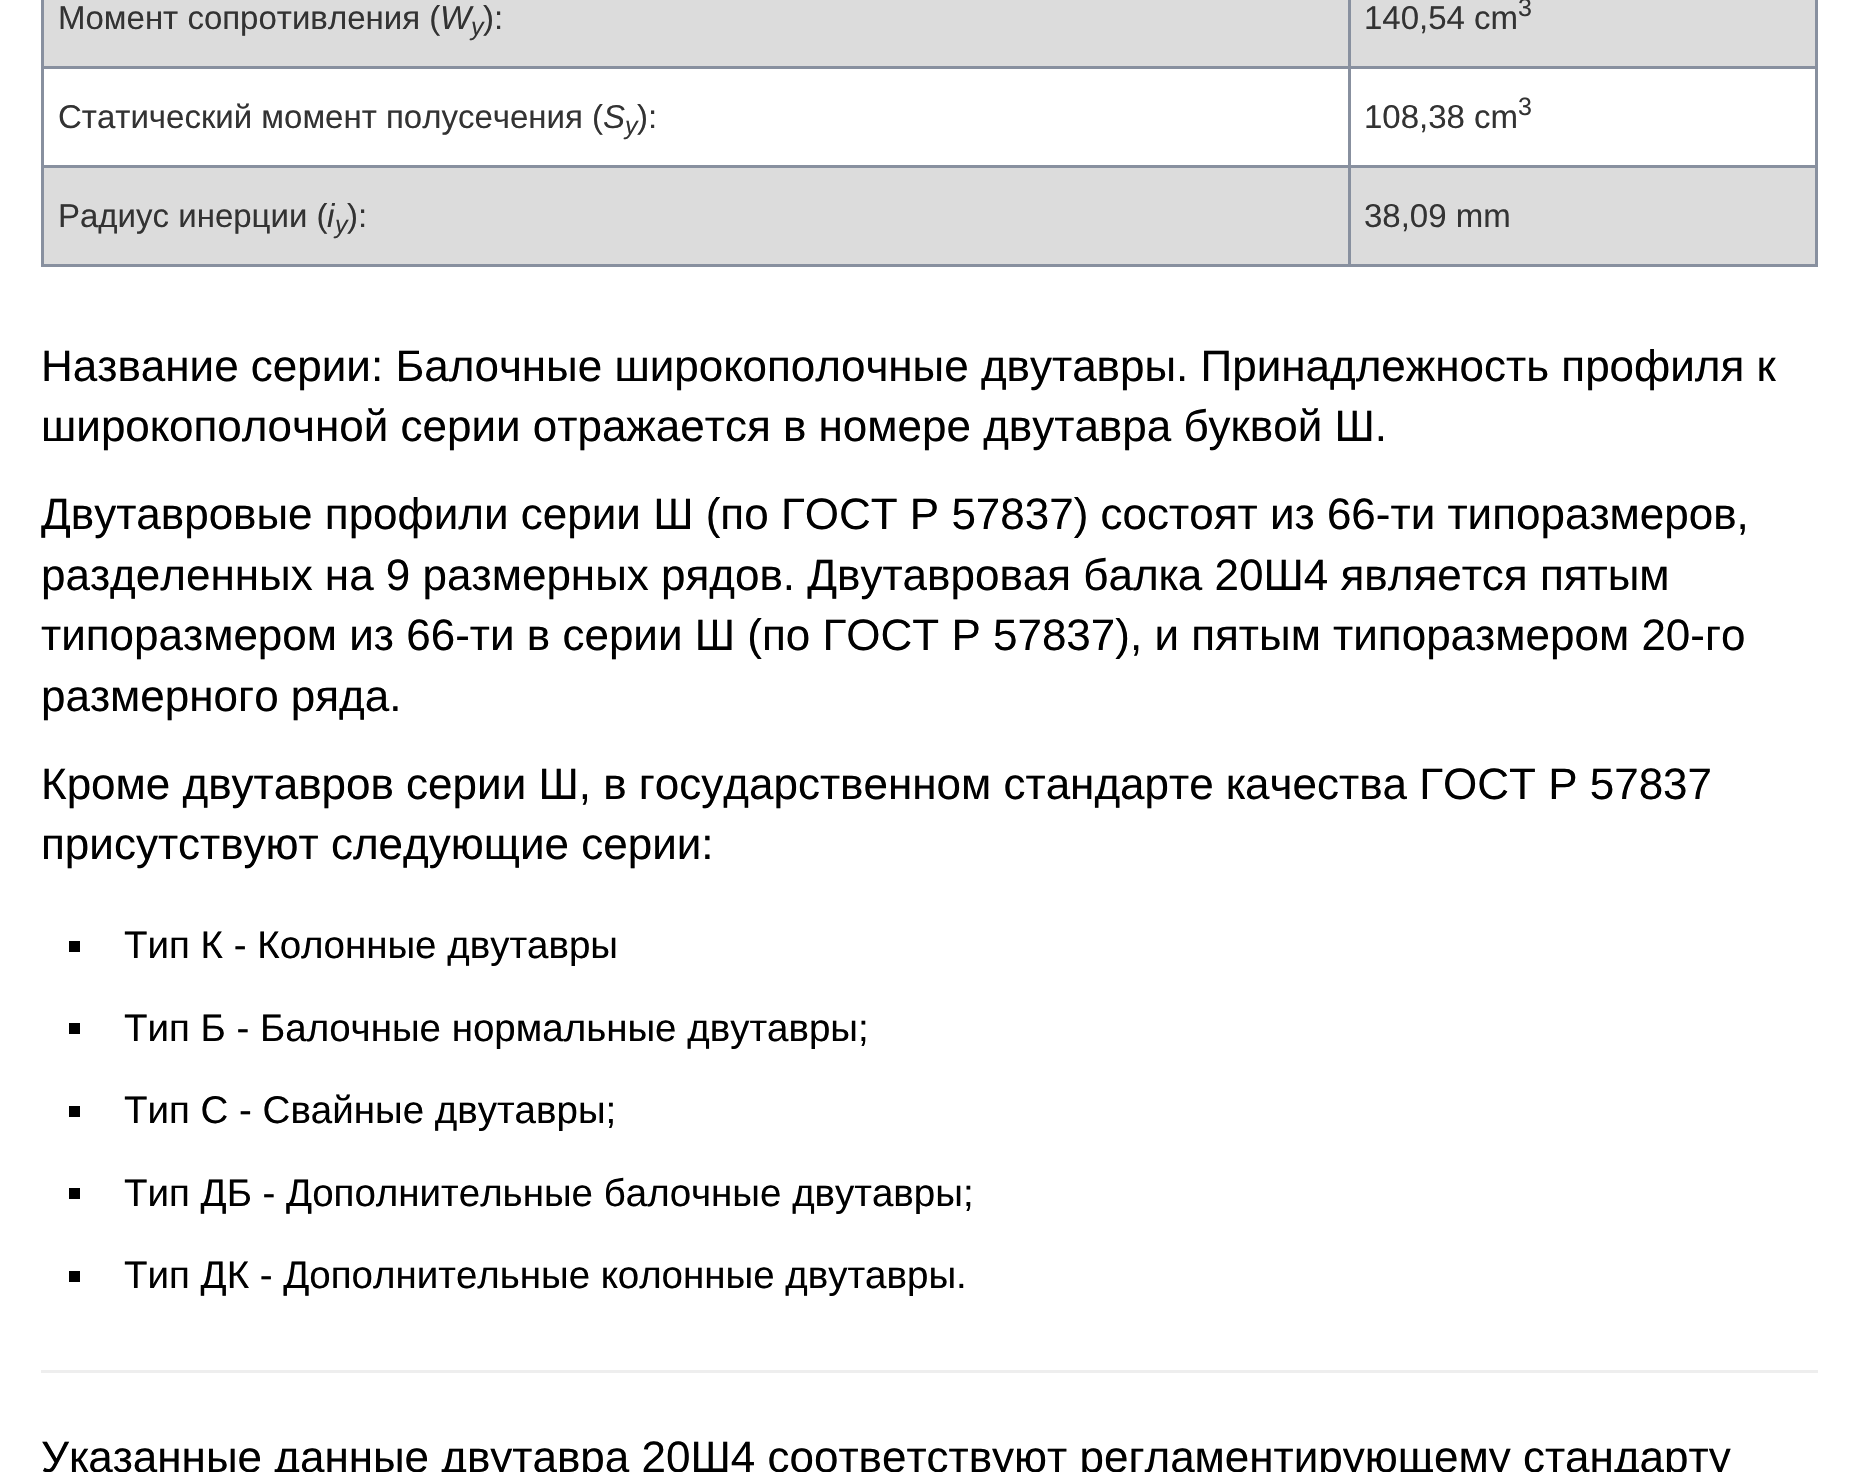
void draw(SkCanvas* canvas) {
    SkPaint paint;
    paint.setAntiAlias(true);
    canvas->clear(0xFFFFFFFF);
    paint.setColor(0xFFDCDCDC);
    canvas->drawRect(SkRect::MakeXYWH(44, 0, 1771, 66), paint);
    SkFont font1(fontMgr->matchFamilyStyle("Liberation Sans", SkFontStyle::Normal()), 33);
    font1.setSubpixel(true);
    paint.setColor(0xFF333333);
    canvas->drawString("Момент сопротивления (", 58, 29, font1, paint);
    SkFont font2(fontMgr->matchFamilyStyle("Liberation Sans", SkFontStyle::Italic()), 33);
    font2.setSubpixel(true);
    canvas->drawString("W", 440, 29, font2, paint);
    canvas->drawString("):", 483, 29, font1, paint);
    SkFont font3(fontMgr->matchFamilyStyle("Liberation Sans", SkFontStyle::Italic()), 25);
    font3.setSubpixel(true);
    canvas->drawString("y", 471, 35, font3, paint);
    paint.setColor(0xFF88909F);
    canvas->drawRect(SkRect::MakeXYWH(1348, 66, 470, 3), paint);
    canvas->drawRect(SkRect::MakeXYWH(1348, 165, 470, 3), paint);
    paint.setColor(0xFFDCDCDC);
    canvas->drawRect(SkRect::MakeXYWH(44, 168, 1771, 96), paint);
    paint.setColor(0xFF88909F);
    canvas->drawRect(SkRect::MakeXYWH(1815, 165, 3, 102), paint);
    canvas->drawRect(SkRect::MakeXYWH(1348, 264, 470, 3), paint);
    canvas->drawRect(SkRect::MakeXYWH(1348, 165, 3, 102), paint);
    canvas->drawRect(SkRect::MakeXYWH(41, 165, 1309, 3), paint);
    canvas->drawRect(SkRect::MakeXYWH(1348, 66, 3, 102), paint);
    canvas->drawRect(SkRect::MakeXYWH(41, 66, 1309, 3), paint);
    canvas->drawRect(SkRect::MakeXYWH(1348, 0, 3, 69), paint);
    paint.setColor(0xFF333333);
    canvas->drawString("140,54 cm", 1364, 29, font1, paint);
    SkFont font4(fontMgr->matchFamilyStyle("Liberation Sans", SkFontStyle::Normal()), 25);
    font4.setSubpixel(true);
    canvas->drawString("3", 1518, 16, font4, paint);
    paint.setColor(0xFF88909F);
    canvas->drawRect(SkRect::MakeXYWH(41, 264, 1309, 3), paint);
    canvas->drawRect(SkRect::MakeXYWH(41, 165, 3, 102), paint);
    canvas->drawRect(SkRect::MakeXYWH(41, 0, 3, 168), paint);
    paint.setColor(0xFF333333);
    canvas->drawString("Статический момент полусечения (", 58, 128, font1, paint);
    canvas->drawString("S", 603, 128, font2, paint);
    canvas->drawString("):", 637, 128, font1, paint);
    canvas->drawString("y", 625, 134, font3, paint);
    paint.setColor(0xFF88909F);
    canvas->drawRect(SkRect::MakeXYWH(1815, 0, 3, 168), paint);
    paint.setColor(0xFF333333);
    canvas->drawString("108,38 cm", 1364, 128, font1, paint);
    canvas->drawString("3", 1518, 115, font4, paint);
    canvas->drawString("Радиус инерции (", 58, 227, font1, paint);
    canvas->drawString("i", 327, 227, font2, paint);
    canvas->drawString("):", 347, 227, font1, paint);
    canvas->drawString("y", 335, 233, font3, paint);
    canvas->drawString("38,09 mm", 1364, 227, font1, paint);
    SkFont font5(fontMgr->matchFamilyStyle("Liberation Sans", SkFontStyle::Normal()), 44);
    font5.setSubpixel(true);
    paint.setColor(0xFF000000);
    canvas->drawString("Название серии: Балочные широкополочные двутавры. Принадлежность профиля к", 41, 381, font5, paint);
    canvas->drawString("широкополочной серии отражается в номере двутавра буквой Ш.", 41, 441, font5, paint);
    canvas->drawString("Двутавровые профили серии Ш (по ГОСТ Р 57837) состоят из 66-ти типоразмеров,", 41, 529, font5, paint);
    canvas->drawString("разделенных на 9 размерных рядов. Двутавровая балка 20Ш4 является пятым", 41, 590, font5, paint);
    canvas->drawString("типоразмером из 66-ти в серии Ш (по ГОСТ Р 57837), и пятым типоразмером 20-го", 41, 650, font5, paint);
    canvas->drawString("размерного ряда.", 41, 711, font5, paint);
    canvas->drawString("Кроме двутавров серии Ш, в государственном стандарте качества ГОСТ Р 57837", 41, 799, font5, paint);
    canvas->drawString("присутствуют следующие серии:", 41, 859, font5, paint);
    canvas->drawRect(SkRect::MakeXYWH(69, 941, 11, 11), paint);
    SkFont font6(fontMgr->matchFamilyStyle("Liberation Sans", SkFontStyle::Normal()), 38.5f);
    font6.setSubpixel(true);
    canvas->drawString("Тип К - Колонные двутавры", 124, 958, font6, paint);
    canvas->drawRect(SkRect::MakeXYWH(69, 1023, 11, 11), paint);
    canvas->drawString("Тип Б - Балочные нормальные двутавры;", 124, 1041, font6, paint);
    canvas->drawRect(SkRect::MakeXYWH(69, 1106, 11, 11), paint);
    canvas->drawString("Тип С - Свайные двутавры;", 124, 1123, font6, paint);
    canvas->drawRect(SkRect::MakeXYWH(69, 1188, 11, 11), paint);
    canvas->drawString("Тип ДБ - Дополнительные балочные двутавры;", 124, 1206, font6, paint);
    canvas->drawRect(SkRect::MakeXYWH(69, 1271, 11, 11), paint);
    canvas->drawString("Тип ДК - Дополнительные колонные двутавры.", 124, 1288, font6, paint);
    paint.setColor(0xFFEEEEEE);
    canvas->drawRect(SkRect::MakeXYWH(41, 1370, 1777, 3), paint);
    paint.setColor(0xFF000000);
    canvas->drawString("Указанные данные двутавра 20Ш4 соответствуют регламентирующему стандарту", 41, 1472, font5, paint);
}
